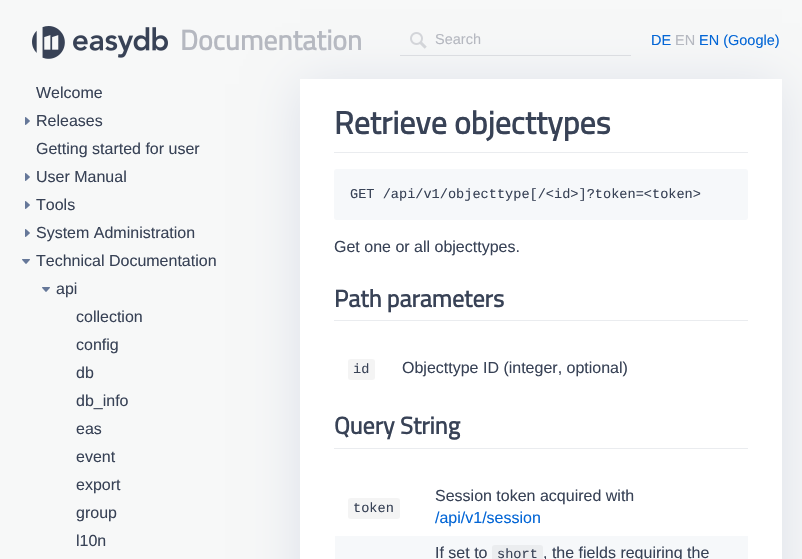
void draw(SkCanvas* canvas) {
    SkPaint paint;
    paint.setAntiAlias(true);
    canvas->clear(0xFFF7F8F8);
    canvas->drawImageRect(SkImages::DeferredFromEncodedData(SkData::MakeFromFileName("img1.png")), SkRect::MakeXYWH(32, 26, 136, 33), SkSamplingOptions());
    SkFont font1(fontMgr->matchFamilyStyle("Titillium Web", SkFontStyle::Bold()), 28);
    font1.setSubpixel(true);
    paint.setColor(0xFFB5B8C0);
    canvas->drawString("Documentation", 180, 50, font1, paint);
    paint.setColor(0xFFDCE0E9);
    paint.setMaskFilter(SkMaskFilter::MakeBlur(kNormal_SkBlurStyle, 25));
    canvas->drawRect(SkRect::MakeXYWH(300, 84, 482, 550), paint);
    paint.setMaskFilter(nullptr);
    canvas->drawImageRect(SkImages::DeferredFromEncodedData(SkData::MakeFromFileName("img2.png")), SkRect::MakeXYWH(410, 32, 17, 17), SkSamplingOptions());
    paint.setColor(0xFFDBDDE1);
    canvas->drawRect(SkRect::MakeXYWH(400, 55, 231, 1), paint);
    SkFont font2(fontMgr->matchFamilyStyle("Liberation Sans", SkFontStyle::Normal()), 14.5f);
    font2.setSubpixel(true);
    paint.setColor(0xFFB5B8C0);
    canvas->drawString("Search", 435, 44, font2, paint);
    paint.setColor(0xFF0366D6);
    canvas->drawString("DE", 651, 45, font2, paint);
    paint.setColor(0xFFB5B8C0);
    canvas->drawString("EN", 675, 45, font2, paint);
    paint.setColor(0xFF0366D6);
    canvas->drawString("EN (Google)", 699, 45, font2, paint);
    SkFont font3(fontMgr->matchFamilyStyle("Liberation Sans", SkFontStyle::Normal()), 16);
    font3.setSubpixel(true);
    paint.setColor(0xFF384256);
    canvas->drawString("Welcome", 36, 98, font3, paint);
    canvas->drawImageRect(SkImages::DeferredFromEncodedData(SkData::MakeFromFileName("img3.png")), SkRect::MakeXYWH(25, 117, 5, 8), SkSamplingOptions());
    canvas->drawString("Releases", 36, 126, font3, paint);
    canvas->drawString("Getting started for user", 36, 154, font3, paint);
    canvas->drawImageRect(SkImages::DeferredFromEncodedData(SkData::MakeFromFileName("img3.png")), SkRect::MakeXYWH(25, 173, 5, 8), SkSamplingOptions());
    canvas->drawString("User Manual", 36, 182, font3, paint);
    canvas->drawImageRect(SkImages::DeferredFromEncodedData(SkData::MakeFromFileName("img3.png")), SkRect::MakeXYWH(25, 201, 5, 8), SkSamplingOptions());
    canvas->drawString("Tools", 36, 210, font3, paint);
    canvas->drawImageRect(SkImages::DeferredFromEncodedData(SkData::MakeFromFileName("img3.png")), SkRect::MakeXYWH(25, 229, 5, 8), SkSamplingOptions());
    canvas->drawString("System Administration", 36, 238, font3, paint);
    canvas->drawImageRect(SkImages::DeferredFromEncodedData(SkData::MakeFromFileName("img4.png")), SkRect::MakeXYWH(22, 259, 8, 5), SkSamplingOptions());
    canvas->drawString("Technical Documentation", 36, 266, font3, paint);
    canvas->drawImageRect(SkImages::DeferredFromEncodedData(SkData::MakeFromFileName("img4.png")), SkRect::MakeXYWH(42, 287, 8, 5), SkSamplingOptions());
    canvas->drawString("api", 56, 294, font3, paint);
    canvas->drawString("collection", 76, 322, font3, paint);
    canvas->drawString("config", 76, 350, font3, paint);
    canvas->drawString("db", 76, 378, font3, paint);
    canvas->drawString("db_info", 76, 406, font3, paint);
    canvas->drawString("eas", 76, 434, font3, paint);
    canvas->drawString("event", 76, 462, font3, paint);
    canvas->drawString("export", 76, 490, font3, paint);
    canvas->drawString("group", 76, 518, font3, paint);
    canvas->drawString("l10n", 76, 546, font3, paint);
    paint.setColor(0xFFFFFFFF);
    canvas->drawRect(SkRect::MakeXYWH(300, 79, 482, 480), paint);
    paint.setColor(0xFFEAECEF);
    canvas->drawRect(SkRect::MakeXYWH(334, 152, 414, 1), paint);
    SkFont font4(fontMgr->matchFamilyStyle("Titillium Web", SkFontStyle::Bold()), 32);
    font4.setSubpixel(true);
    paint.setColor(0xFF384256);
    canvas->drawString("Retrieve objecttypes", 334, 134, font4, paint);
    paint.setColor(0xFFF6F8FA);
    canvas->drawRoundRect(SkRect::MakeXYWH(334, 169, 414, 51), 3, 3, paint);
    SkFont font5(fontMgr->matchFamilyStyle("Liberation Mono", SkFontStyle::Normal()), 13.6f);
    font5.setSubpixel(true);
    paint.setColor(0xFF384256);
    canvas->drawString("GET /api/v1/objecttype[/<id>]?token=<token>", 350, 198, font5, paint);
    canvas->drawString("Get one or all objecttypes.", 334, 252, font3, paint);
    paint.setColor(0xFFEAECEF);
    canvas->drawRect(SkRect::MakeXYWH(334, 320, 414, 1), paint);
    SkFont font6(fontMgr->matchFamilyStyle("Titillium Web", SkFontStyle::Bold()), 24);
    font6.setSubpixel(true);
    paint.setColor(0xFF384256);
    canvas->drawString("Path parameters", 334, 307, font6, paint);
    paint.setColor(0xFFF4F4F4);
    canvas->drawRoundRect(SkRect::MakeXYWH(348, 359, 27, 21), 3, 3, paint);
    paint.setColor(0xFF384256);
    canvas->drawString("id", 353, 373, font5, paint);
    canvas->drawString("Objecttype ID (integer, optional)", 402, 373, font3, paint);
    paint.setColor(0xFFEAECEF);
    canvas->drawRect(SkRect::MakeXYWH(334, 448, 414, 1), paint);
    paint.setColor(0xFF384256);
    canvas->drawString("Query String", 334, 434, font6, paint);
    paint.setColor(0xFFF4F4F4);
    canvas->drawRoundRect(SkRect::MakeXYWH(348, 498, 52, 21), 3, 3, paint);
    paint.setColor(0xFF384256);
    canvas->drawString("token", 353, 512, font5, paint);
    canvas->drawString("Session token acquired with", 435, 501, font3, paint);
    paint.setColor(0xFF0366D6);
    canvas->drawString("/api/v1/session", 435, 523, font3, paint);
    paint.setColor(0xFFF6F8FA);
    canvas->drawRect(SkRect::MakeXYWH(335, 536, 413, 23), paint);
    paint.setColor(0xFF384256);
    canvas->drawString("If set to", 435, 558, font3, paint);
    paint.setColor(0xFFEBEDEF);
    canvas->drawRoundRect(SkRect::MakeXYWH(492, 545, 51, 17), 3, 3, paint);
    paint.setColor(0xFF384256);
    canvas->drawString("short", 497, 558, font5, paint);
    canvas->drawString(", the fields requiring the", 543, 558, font3, paint);
}
